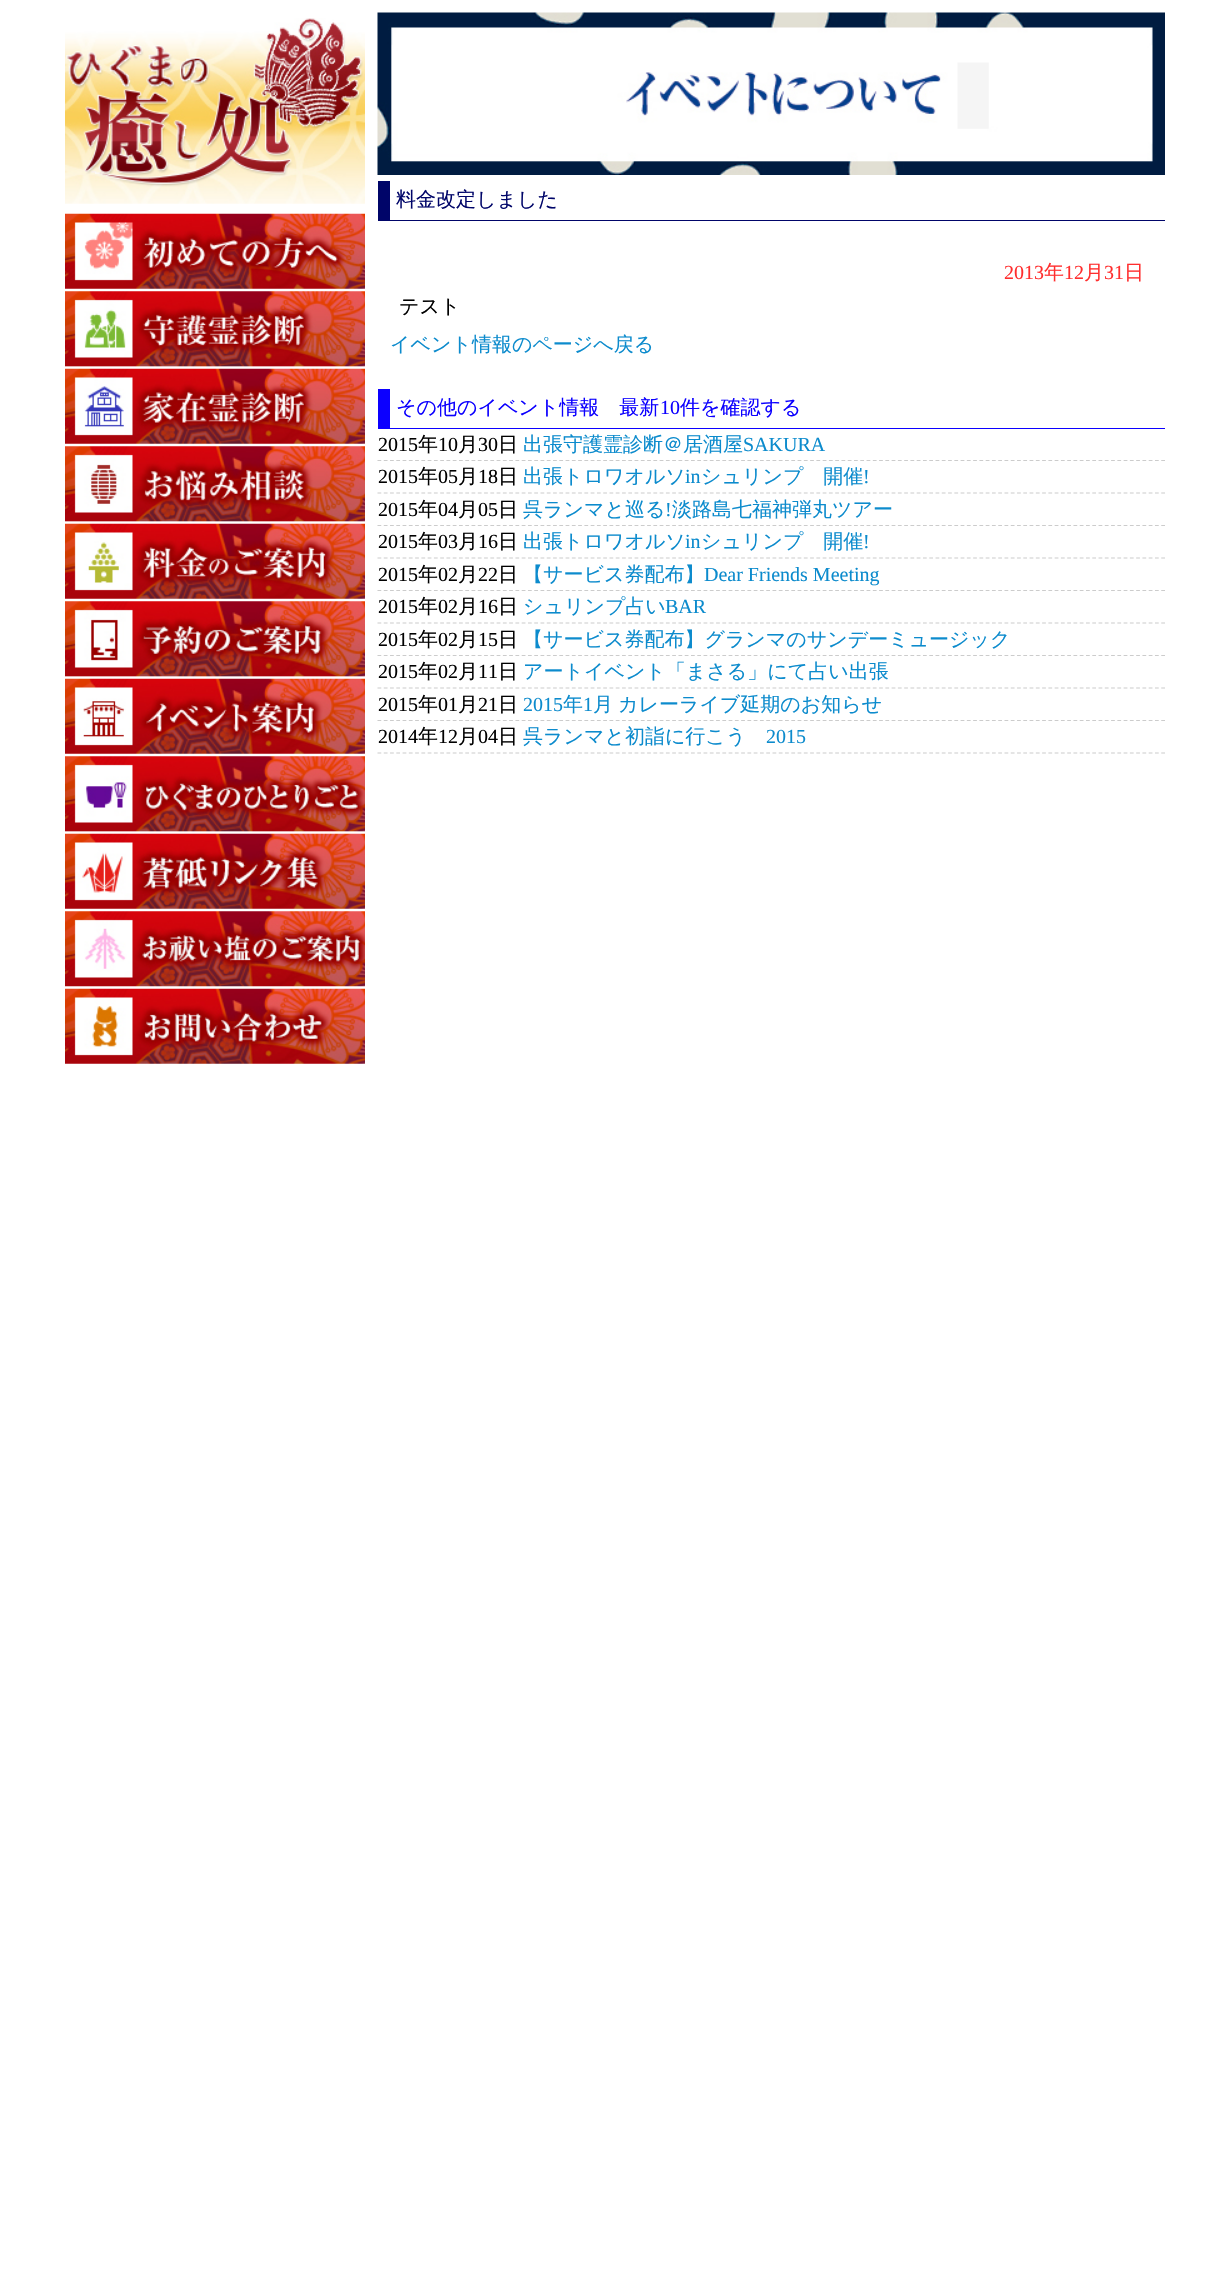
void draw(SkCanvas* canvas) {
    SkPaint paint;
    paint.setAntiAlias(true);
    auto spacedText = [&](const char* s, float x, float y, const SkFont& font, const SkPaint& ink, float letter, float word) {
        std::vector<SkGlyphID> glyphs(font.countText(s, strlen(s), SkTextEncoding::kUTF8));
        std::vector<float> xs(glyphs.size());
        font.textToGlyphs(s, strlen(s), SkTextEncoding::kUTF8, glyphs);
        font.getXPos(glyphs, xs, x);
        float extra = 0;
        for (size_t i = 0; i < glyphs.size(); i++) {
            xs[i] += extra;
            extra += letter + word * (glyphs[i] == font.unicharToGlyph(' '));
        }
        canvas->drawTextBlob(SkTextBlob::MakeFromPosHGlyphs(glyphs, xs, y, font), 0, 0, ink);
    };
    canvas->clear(0xFFFFFFFF);
    canvas->drawImageRect(SkImages::DeferredFromEncodedData(SkData::MakeFromFileName("img1.png")), SkRect::MakeXYWH(65, 18, 300, 186), SkSamplingOptions());
    canvas->drawImageRect(SkImages::DeferredFromEncodedData(SkData::MakeFromFileName("img2.png")), SkRect::MakeXYWH(65, 213, 300, 76), SkSamplingOptions());
    canvas->drawImageRect(SkImages::DeferredFromEncodedData(SkData::MakeFromFileName("img3.png")), SkRect::MakeXYWH(65, 291, 300, 76), SkSamplingOptions());
    canvas->drawImageRect(SkImages::DeferredFromEncodedData(SkData::MakeFromFileName("img4.png")), SkRect::MakeXYWH(65, 368, 300, 76), SkSamplingOptions());
    canvas->drawImageRect(SkImages::DeferredFromEncodedData(SkData::MakeFromFileName("img5.png")), SkRect::MakeXYWH(65, 446, 300, 76), SkSamplingOptions());
    canvas->drawImageRect(SkImages::DeferredFromEncodedData(SkData::MakeFromFileName("img6.png")), SkRect::MakeXYWH(65, 523, 300, 76), SkSamplingOptions());
    canvas->drawImageRect(SkImages::DeferredFromEncodedData(SkData::MakeFromFileName("img7.png")), SkRect::MakeXYWH(65, 601, 300, 76), SkSamplingOptions());
    canvas->drawImageRect(SkImages::DeferredFromEncodedData(SkData::MakeFromFileName("img8.png")), SkRect::MakeXYWH(65, 678, 300, 76), SkSamplingOptions());
    canvas->drawImageRect(SkImages::DeferredFromEncodedData(SkData::MakeFromFileName("img9.png")), SkRect::MakeXYWH(65, 756, 300, 76), SkSamplingOptions());
    canvas->drawImageRect(SkImages::DeferredFromEncodedData(SkData::MakeFromFileName("img10.png")), SkRect::MakeXYWH(65, 833, 300, 76), SkSamplingOptions());
    canvas->drawImageRect(SkImages::DeferredFromEncodedData(SkData::MakeFromFileName("img11.png")), SkRect::MakeXYWH(65, 911, 300, 76), SkSamplingOptions());
    canvas->drawImageRect(SkImages::DeferredFromEncodedData(SkData::MakeFromFileName("img12.png")), SkRect::MakeXYWH(65, 988, 300, 76), SkSamplingOptions());
    canvas->drawImageRect(SkImages::DeferredFromEncodedData(SkData::MakeFromFileName("img13.png")), SkRect::MakeXYWH(377, 12, 788, 163), SkSamplingOptions());
    paint.setColor(0xFF000569);
    canvas->drawRect(SkRect::MakeXYWH(390, 220, 775, 1), paint);
    canvas->drawRect(SkRect::MakeXYWH(378, 181, 12, 40), paint);
    SkFont font1(fontMgr->matchFamilyStyle("WenQuanYi Zen Hei", SkFontStyle(500, SkFontStyle::kNormal_Width, SkFontStyle::kUpright_Slant)), 20);
    font1.setSubpixel(true);
    canvas->drawString("料金改定しました", 396, 206, font1, paint);
    SkFont font2(fontMgr->matchFamilyStyle("Liberation Serif", SkFontStyle::Normal()), 20);
    font2.setSubpixel(true);
    paint.setColor(0xFFFF2E2E);
    canvas->drawString("2013", 1004, 279, font2, paint);
    canvas->drawString("年", 1044, 279, font1, paint);
    canvas->drawString("12", 1064, 279, font2, paint);
    canvas->drawString("月", 1084, 279, font1, paint);
    canvas->drawString("31", 1104, 279, font2, paint);
    canvas->drawString("日", 1124, 279, font1, paint);
    paint.setColor(0xFF000000);
    canvas->drawString("テスト", 399, 313, font1, paint);
    paint.setColor(0xFF0C8BCD);
    canvas->drawString("イベント情報のページへ戻る", 390, 351, font1, paint);
    paint.setColor(0xFF0C00FF);
    canvas->drawRect(SkRect::MakeXYWH(390, 428, 775, 1), paint);
    canvas->drawRect(SkRect::MakeXYWH(378, 389, 12, 40), paint);
    canvas->drawString("その他のイベント情報　最新", 396, 414, font1, paint);
    canvas->drawString("10", 660, 414, font2, paint);
    canvas->drawString("件を確認する", 680, 414, font1, paint);
    paint.setStyle(SkPaint::kStroke_Style);
    paint.setStrokeWidth(1.2f);
    paint.setColor(0xFFCCCCCC);
    paint.setPathEffect(SkDashPathEffect::Make({{3.75f, 2.52f}}, 0));
    canvas->drawPath(SkPathBuilder().moveTo(377.5f, 460.5f).lineTo(1165, 460.5f).detach(), paint);
    paint.setPathEffect(nullptr);
    paint.setStyle(SkPaint::kFill_Style);
    paint.setColor(0xFF000000);
    canvas->drawString("2015", 378, 451, font2, paint);
    canvas->drawString("年", 418, 451, font1, paint);
    canvas->drawString("10", 438, 451, font2, paint);
    canvas->drawString("月", 458, 451, font1, paint);
    canvas->drawString("30", 478, 451, font2, paint);
    canvas->drawString("日", 498, 451, font1, paint);
    paint.setColor(0xFF0C8BCD);
    canvas->drawString("出張守護霊診断＠居酒屋", 523, 451, font1, paint);
    canvas->drawString("SAKURA", 743, 451, font2, paint);
    paint.setStyle(SkPaint::kStroke_Style);
    paint.setColor(0xFFCCCCCC);
    paint.setPathEffect(SkDashPathEffect::Make({{3.75f, 2.52f}}, 0));
    canvas->drawPath(SkPathBuilder().moveTo(377.5f, 493).lineTo(1165, 493).detach(), paint);
    paint.setPathEffect(nullptr);
    paint.setStyle(SkPaint::kFill_Style);
    paint.setColor(0xFF000000);
    canvas->drawString("2015", 378, 483, font2, paint);
    canvas->drawString("年", 418, 483, font1, paint);
    canvas->drawString("05", 438, 483, font2, paint);
    canvas->drawString("月", 458, 483, font1, paint);
    canvas->drawString("18", 478, 483, font2, paint);
    canvas->drawString("日", 498, 483, font1, paint);
    paint.setColor(0xFF0C8BCD);
    canvas->drawString("出張トロワオルソ", 523, 483, font1, paint);
    canvas->drawString("in", 685, 483, font2, paint);
    canvas->drawString("シュリンプ　開催", 701, 483, font1, paint);
    canvas->drawString("!", 863, 483, font2, paint);
    paint.setStyle(SkPaint::kStroke_Style);
    paint.setColor(0xFFCCCCCC);
    paint.setPathEffect(SkDashPathEffect::Make({{3.75f, 2.52f}}, 0));
    canvas->drawPath(SkPathBuilder().moveTo(377.5f, 525.5f).lineTo(1165, 525.5f).detach(), paint);
    paint.setPathEffect(nullptr);
    paint.setStyle(SkPaint::kFill_Style);
    paint.setColor(0xFF000000);
    canvas->drawString("2015", 378, 516, font2, paint);
    canvas->drawString("年", 418, 516, font1, paint);
    canvas->drawString("04", 438, 516, font2, paint);
    canvas->drawString("月", 458, 516, font1, paint);
    canvas->drawString("05", 478, 516, font2, paint);
    canvas->drawString("日", 498, 516, font1, paint);
    paint.setColor(0xFF0C8BCD);
    canvas->drawString("呉ランマと巡る", 523, 516, font1, paint);
    canvas->drawString("!", 665, 516, font2, paint);
    canvas->drawString("淡路島七福神弾丸ツアー", 672, 516, font1, paint);
    paint.setStyle(SkPaint::kStroke_Style);
    paint.setColor(0xFFCCCCCC);
    paint.setPathEffect(SkDashPathEffect::Make({{3.75f, 2.52f}}, 0));
    canvas->drawPath(SkPathBuilder().moveTo(377.5f, 558).lineTo(1165, 558).detach(), paint);
    paint.setPathEffect(nullptr);
    paint.setStyle(SkPaint::kFill_Style);
    paint.setColor(0xFF000000);
    canvas->drawString("2015", 378, 548, font2, paint);
    canvas->drawString("年", 418, 548, font1, paint);
    canvas->drawString("03", 438, 548, font2, paint);
    canvas->drawString("月", 458, 548, font1, paint);
    canvas->drawString("16", 478, 548, font2, paint);
    canvas->drawString("日", 498, 548, font1, paint);
    paint.setColor(0xFF0C8BCD);
    canvas->drawString("出張トロワオルソ", 523, 548, font1, paint);
    canvas->drawString("in", 685, 548, font2, paint);
    canvas->drawString("シュリンプ　開催", 701, 548, font1, paint);
    canvas->drawString("!", 863, 548, font2, paint);
    paint.setStyle(SkPaint::kStroke_Style);
    paint.setColor(0xFFCCCCCC);
    paint.setPathEffect(SkDashPathEffect::Make({{3.75f, 2.52f}}, 0));
    canvas->drawPath(SkPathBuilder().moveTo(377.5f, 590.5f).lineTo(1165, 590.5f).detach(), paint);
    paint.setPathEffect(nullptr);
    paint.setStyle(SkPaint::kFill_Style);
    paint.setColor(0xFF000000);
    canvas->drawString("2015", 378, 581, font2, paint);
    canvas->drawString("年", 418, 581, font1, paint);
    canvas->drawString("02", 438, 581, font2, paint);
    canvas->drawString("月", 458, 581, font1, paint);
    canvas->drawString("22", 478, 581, font2, paint);
    canvas->drawString("日", 498, 581, font1, paint);
    paint.setColor(0xFF0C8BCD);
    canvas->drawString("【サービス券配布】", 523, 581, font1, paint);
    canvas->drawString("Dear Friends Meeting", 704, 581, font2, paint);
    paint.setStyle(SkPaint::kStroke_Style);
    paint.setColor(0xFFCCCCCC);
    paint.setPathEffect(SkDashPathEffect::Make({{3.75f, 2.52f}}, 0));
    canvas->drawPath(SkPathBuilder().moveTo(377.5f, 623).lineTo(1165, 623).detach(), paint);
    paint.setPathEffect(nullptr);
    paint.setStyle(SkPaint::kFill_Style);
    paint.setColor(0xFF000000);
    canvas->drawString("2015", 378, 613, font2, paint);
    canvas->drawString("年", 418, 613, font1, paint);
    canvas->drawString("02", 438, 613, font2, paint);
    canvas->drawString("月", 458, 613, font1, paint);
    canvas->drawString("16", 478, 613, font2, paint);
    canvas->drawString("日", 498, 613, font1, paint);
    paint.setColor(0xFF0C8BCD);
    canvas->drawString("シュリンプ占い", 523, 613, font1, paint);
    canvas->drawString("BAR", 665, 613, font2, paint);
    paint.setStyle(SkPaint::kStroke_Style);
    paint.setColor(0xFFCCCCCC);
    paint.setPathEffect(SkDashPathEffect::Make({{3.75f, 2.52f}}, 0));
    canvas->drawPath(SkPathBuilder().moveTo(377.5f, 655.5f).lineTo(1165, 655.5f).detach(), paint);
    paint.setPathEffect(nullptr);
    paint.setStyle(SkPaint::kFill_Style);
    paint.setColor(0xFF000000);
    canvas->drawString("2015", 378, 646, font2, paint);
    canvas->drawString("年", 418, 646, font1, paint);
    canvas->drawString("02", 438, 646, font2, paint);
    canvas->drawString("月", 458, 646, font1, paint);
    canvas->drawString("15", 478, 646, font2, paint);
    canvas->drawString("日", 498, 646, font1, paint);
    paint.setColor(0xFF0C8BCD);
    canvas->drawString("【サービス券配布】グランマのサンデーミュージック", 523, 646, font1, paint);
    paint.setStyle(SkPaint::kStroke_Style);
    paint.setColor(0xFFCCCCCC);
    paint.setPathEffect(SkDashPathEffect::Make({{3.75f, 2.52f}}, 0));
    canvas->drawPath(SkPathBuilder().moveTo(377.5f, 688).lineTo(1165, 688).detach(), paint);
    paint.setPathEffect(nullptr);
    paint.setStyle(SkPaint::kFill_Style);
    paint.setColor(0xFF000000);
    canvas->drawString("2015", 378, 678, font2, paint);
    canvas->drawString("年", 418, 678, font1, paint);
    canvas->drawString("02", 438, 678, font2, paint);
    canvas->drawString("月", 458, 678, font1, paint);
    canvas->drawString("11", 478, 678, font2, paint);
    canvas->drawString("日", 498, 678, font1, paint);
    paint.setColor(0xFF0C8BCD);
    canvas->drawString("アートイベント「まさる」にて占い出張", 523, 678, font1, paint);
    paint.setStyle(SkPaint::kStroke_Style);
    paint.setColor(0xFFCCCCCC);
    paint.setPathEffect(SkDashPathEffect::Make({{3.75f, 2.52f}}, 0));
    canvas->drawPath(SkPathBuilder().moveTo(377.5f, 720.5f).lineTo(1165, 720.5f).detach(), paint);
    paint.setPathEffect(nullptr);
    paint.setStyle(SkPaint::kFill_Style);
    paint.setColor(0xFF000000);
    canvas->drawString("2015", 378, 711, font2, paint);
    canvas->drawString("年", 418, 711, font1, paint);
    canvas->drawString("01", 438, 711, font2, paint);
    canvas->drawString("月", 458, 711, font1, paint);
    canvas->drawString("21", 478, 711, font2, paint);
    canvas->drawString("日", 498, 711, font1, paint);
    paint.setColor(0xFF0C8BCD);
    canvas->drawString("2015", 523, 711, font2, paint);
    canvas->drawString("年", 563, 711, font1, paint);
    canvas->drawString("1", 583, 711, font2, paint);
    spacedText("月 カレーライブ延期のお知らせ", 593, 711, font1, paint, 0, -1);
    paint.setStyle(SkPaint::kStroke_Style);
    paint.setColor(0xFFCCCCCC);
    paint.setPathEffect(SkDashPathEffect::Make({{3.75f, 2.52f}}, 0));
    canvas->drawPath(SkPathBuilder().moveTo(377.5f, 753).lineTo(1165, 753).detach(), paint);
    paint.setPathEffect(nullptr);
    paint.setStyle(SkPaint::kFill_Style);
    paint.setColor(0xFF000000);
    canvas->drawString("2014", 378, 743, font2, paint);
    canvas->drawString("年", 418, 743, font1, paint);
    canvas->drawString("12", 438, 743, font2, paint);
    canvas->drawString("月", 458, 743, font1, paint);
    canvas->drawString("04", 478, 743, font2, paint);
    canvas->drawString("日", 498, 743, font1, paint);
    paint.setColor(0xFF0C8BCD);
    canvas->drawString("呉ランマと初詣に行こう", 523, 743, font1, paint);
    canvas->drawString("2015", 766, 743, font2, paint);
}
